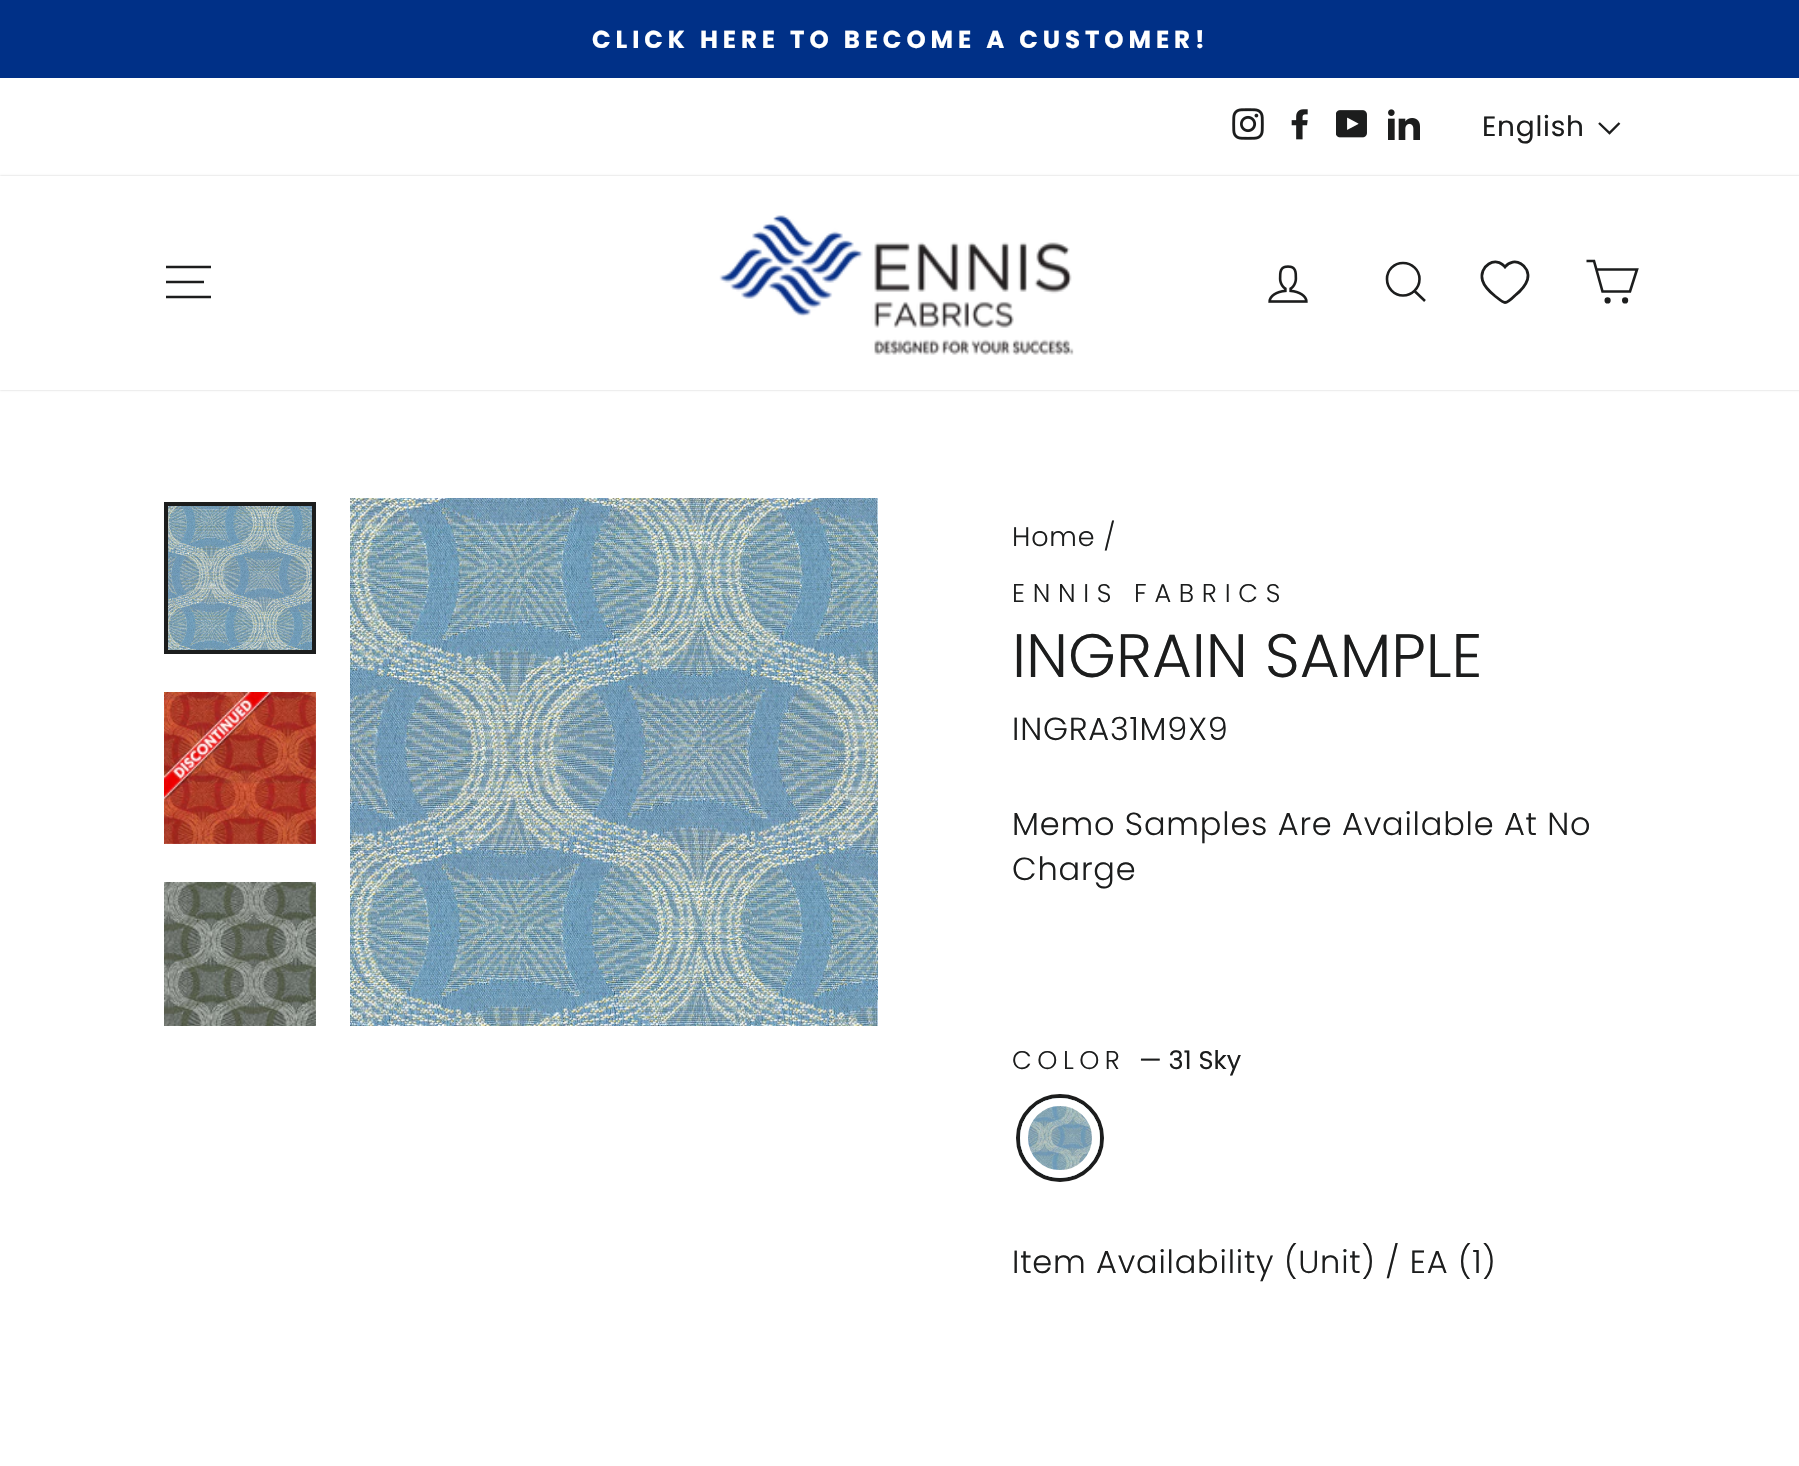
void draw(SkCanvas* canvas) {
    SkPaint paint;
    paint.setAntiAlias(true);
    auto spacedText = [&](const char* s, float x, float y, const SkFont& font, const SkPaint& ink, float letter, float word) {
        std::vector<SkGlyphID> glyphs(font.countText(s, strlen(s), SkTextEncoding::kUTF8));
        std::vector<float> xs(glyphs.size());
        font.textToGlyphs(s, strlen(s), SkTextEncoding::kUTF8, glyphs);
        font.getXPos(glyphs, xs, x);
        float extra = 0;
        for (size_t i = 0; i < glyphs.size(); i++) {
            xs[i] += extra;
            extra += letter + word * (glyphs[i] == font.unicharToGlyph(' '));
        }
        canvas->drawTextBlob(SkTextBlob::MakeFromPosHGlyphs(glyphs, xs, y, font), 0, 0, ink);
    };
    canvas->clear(0xFFFFFFFF);
    paint.setColor(0xFF003087);
    canvas->drawRect(SkRect::MakeXYWH(0, 0, 1799, 78), paint);
    SkFont font1(fontMgr->matchFamilyStyle("Poppins", SkFontStyle::Bold()), 24.5f);
    font1.setSubpixel(true);
    paint.setColor(0xFFFFFFFF);
    spacedText("CLICK HERE TO BECOME A CUSTOMER!", 592, 48, font1, paint, 4.9f, 0);
    canvas->drawImageRect(SkImages::DeferredFromEncodedData(SkData::MakeFromFileName("img1.png")), SkRect::MakeXYWH(1232, 108, 32, 32), SkSamplingOptions());
    canvas->drawImageRect(SkImages::DeferredFromEncodedData(SkData::MakeFromFileName("img2.png")), SkRect::MakeXYWH(1291, 109, 17, 31), SkSamplingOptions());
    canvas->drawImageRect(SkImages::DeferredFromEncodedData(SkData::MakeFromFileName("img3.png")), SkRect::MakeXYWH(1336, 110, 31, 28), SkSamplingOptions());
    canvas->drawImageRect(SkImages::DeferredFromEncodedData(SkData::MakeFromFileName("img4.png")), SkRect::MakeXYWH(1388, 109, 32, 31), SkSamplingOptions());
    SkFont font2(fontMgr->matchFamilyStyle("Poppins", SkFontStyle::Normal()), 28);
    font2.setSubpixel(true);
    paint.setColor(0xFF1C1D1D);
    spacedText("English", 1482, 136, font2, paint, 0.75f, 0);
    paint.setStyle(SkPaint::kStroke_Style);
    paint.setStrokeWidth(2.4f);
    canvas->drawPath(SkPathBuilder().moveTo(1599, 123).lineTo(1609.5f, 133).lineTo(1619.5f, 123).detach(), paint);
    canvas->save();
    canvas->clipPath(SkPathBuilder(SkPathFillType::kEvenOdd).moveTo(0, 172).lineTo(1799, 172).lineTo(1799, 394).lineTo(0, 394).close().moveTo(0, 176).lineTo(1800, 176).lineTo(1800, 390).lineTo(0, 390).close().detach(), true);
    paint.setStyle(SkPaint::kFill_Style);
    paint.setColor(0x33000000);
    paint.setMaskFilter(SkMaskFilter::MakeBlur(kNormal_SkBlurStyle, 1));
    canvas->drawRect(SkRect::MakeXYWH(0, 176, 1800, 214), paint);
    paint.setMaskFilter(nullptr);
    canvas->restore();
    paint.setStyle(SkPaint::kStroke_Style);
    paint.setStrokeWidth(2.6f);
    paint.setColor(0xFF1C1D1D);
    canvas->drawPath(SkPathBuilder().moveTo(166, 267).lineTo(211, 267).moveTo(166, 282).lineTo(204, 282).moveTo(166, 297).lineTo(211, 297).detach(), paint);
    canvas->drawImageRect(SkImages::DeferredFromEncodedData(SkData::MakeFromFileName("img5.png")), SkRect::MakeXYWH(719, 215, 355, 140), SkSamplingOptions());
    canvas->drawImageRect(SkImages::DeferredFromEncodedData(SkData::MakeFromFileName("img6.png")), SkRect::MakeXYWH(1268, 265, 40, 38), SkSamplingOptions());
    canvas->drawPath(SkPathBuilder().moveTo(1419.5f, 279).cubicTo(1419.5f, 288, 1412, 295.5f, 1403, 295.5f).cubicTo(1394, 295.5f, 1387, 288, 1387, 279).cubicTo(1387, 270, 1394, 263, 1403, 263).cubicTo(1412, 263, 1419.5f, 270, 1419.5f, 279).close().moveTo(1425, 301).lineTo(1414.5f, 291).detach(), paint);
    paint.setStrokeWidth(2.8f);
    canvas->drawPath(SkPathBuilder().moveTo(1505, 302.5f).cubicTo(1502.5f, 302.5f, 1497, 297.5f, 1495, 296).cubicTo(1490, 292, 1484.5f, 287, 1482.5f, 280.5f).cubicTo(1478.5f, 266.5f, 1495.5f, 255, 1505, 267).cubicTo(1514, 255.5f, 1531, 265.5f, 1527.5f, 279.5f).cubicTo(1525.5f, 286, 1520, 291.5f, 1515, 295.5f).cubicTo(1513.5f, 297, 1507.5f, 302.5f, 1505, 302.5f).close().detach(), paint);
    paint.setStrokeWidth(2.6f);
    canvas->drawPath(SkPathBuilder().moveTo(1596, 269.5f).lineTo(1637, 269.5f).lineTo(1630, 291.5f).lineTo(1602.5f, 291.5f).lineTo(1594, 261).lineTo(1586.5f, 261).detach(), paint);
    paint.setStyle(SkPaint::kFill_Style);
    canvas->drawCircle(1607.6f, 300.4f, 1.8f, paint);
    paint.setStyle(SkPaint::kStroke_Style);
    canvas->drawCircle(1607.6f, 300.4f, 1.8f, paint);
    paint.setStyle(SkPaint::kFill_Style);
    canvas->drawCircle(1625.1f, 300.4f, 1.8f, paint);
    paint.setStyle(SkPaint::kStroke_Style);
    canvas->drawCircle(1625.1f, 300.4f, 1.8f, paint);
    canvas->drawImageRect(SkImages::DeferredFromEncodedData(SkData::MakeFromFileName("img7.png")), SkRect::MakeXYWH(168, 506, 144, 144), SkSamplingOptions());
    paint.setStrokeWidth(4);
    canvas->drawRect(SkRect::MakeXYWH(166, 504, 148, 148), paint);
    canvas->drawImageRect(SkImages::DeferredFromEncodedData(SkData::MakeFromFileName("img8.png")), SkRect::MakeXYWH(164, 692, 152, 152), SkSamplingOptions());
    canvas->drawImageRect(SkImages::DeferredFromEncodedData(SkData::MakeFromFileName("img9.png")), SkRect::MakeXYWH(164, 882, 152, 144), SkSamplingOptions());
    canvas->drawImageRect(SkImages::DeferredFromEncodedData(SkData::MakeFromFileName("img10.png")), SkRect::MakeXYWH(350, 498, 528, 528), SkSamplingOptions());
    SkFont font3(fontMgr->matchFamilyStyle("Poppins", SkFontStyle(300, SkFontStyle::kNormal_Width, SkFontStyle::kUpright_Slant)), 27);
    font3.setSubpixel(true);
    paint.setStyle(SkPaint::kFill_Style);
    spacedText("Home /", 1012, 546, font3, paint, 0.8f, 0);
    SkFont font4(fontMgr->matchFamilyStyle("Poppins", SkFontStyle(300, SkFontStyle::kNormal_Width, SkFontStyle::kUpright_Slant)), 25.6f);
    font4.setSubpixel(true);
    spacedText("ENNIS FABRICS", 1012, 602, font4, paint, 7.75f, 0);
    SkFont font5(fontMgr->matchFamilyStyle("Poppins", SkFontStyle(300, SkFontStyle::kNormal_Width, SkFontStyle::kUpright_Slant)), 61.25f);
    font5.setSubpixel(true);
    canvas->drawString("INGRAIN SAMPLE", 1012, 677, font5, paint);
    SkFont font6(fontMgr->matchFamilyStyle("Poppins", SkFontStyle(300, SkFontStyle::kNormal_Width, SkFontStyle::kUpright_Slant)), 32);
    font6.setSubpixel(true);
    spacedText("INGRA31M9X9", 1012, 740, font6, paint, 0.8f, 0);
    spacedText("Memo Samples Are Available At No", 1012, 835, font6, paint, 0.8f, 0);
    spacedText("Charge", 1012, 880, font6, paint, 0.8f, 0);
    spacedText("COLOR", 1012, 1069, font4, paint, 5.5f, 0);
    SkFont font7(fontMgr->matchFamilyStyle("Poppins", SkFontStyle::Normal()), 25.6f);
    font7.setSubpixel(true);
    canvas->drawString("— 31 Sky", 1139, 1069, font7, paint);
    paint.setStyle(SkPaint::kStroke_Style);
    canvas->drawCircle(1060, 1138, 42, paint);
    canvas->drawImageRect(SkImages::DeferredFromEncodedData(SkData::MakeFromFileName("img11.png")), SkRect::MakeXYWH(1020, 1098, 80, 80), SkSamplingOptions());
    paint.setStrokeWidth(8);
    paint.setColor(0xFFFFFFFF);
    canvas->drawCircle(1060, 1138, 36, paint);
    paint.setStyle(SkPaint::kFill_Style);
    paint.setColor(0xFF1C1D1D);
    spacedText("Item Availability (Unit) / EA (1)", 1012, 1273, font6, paint, 0.8f, 0);
}
